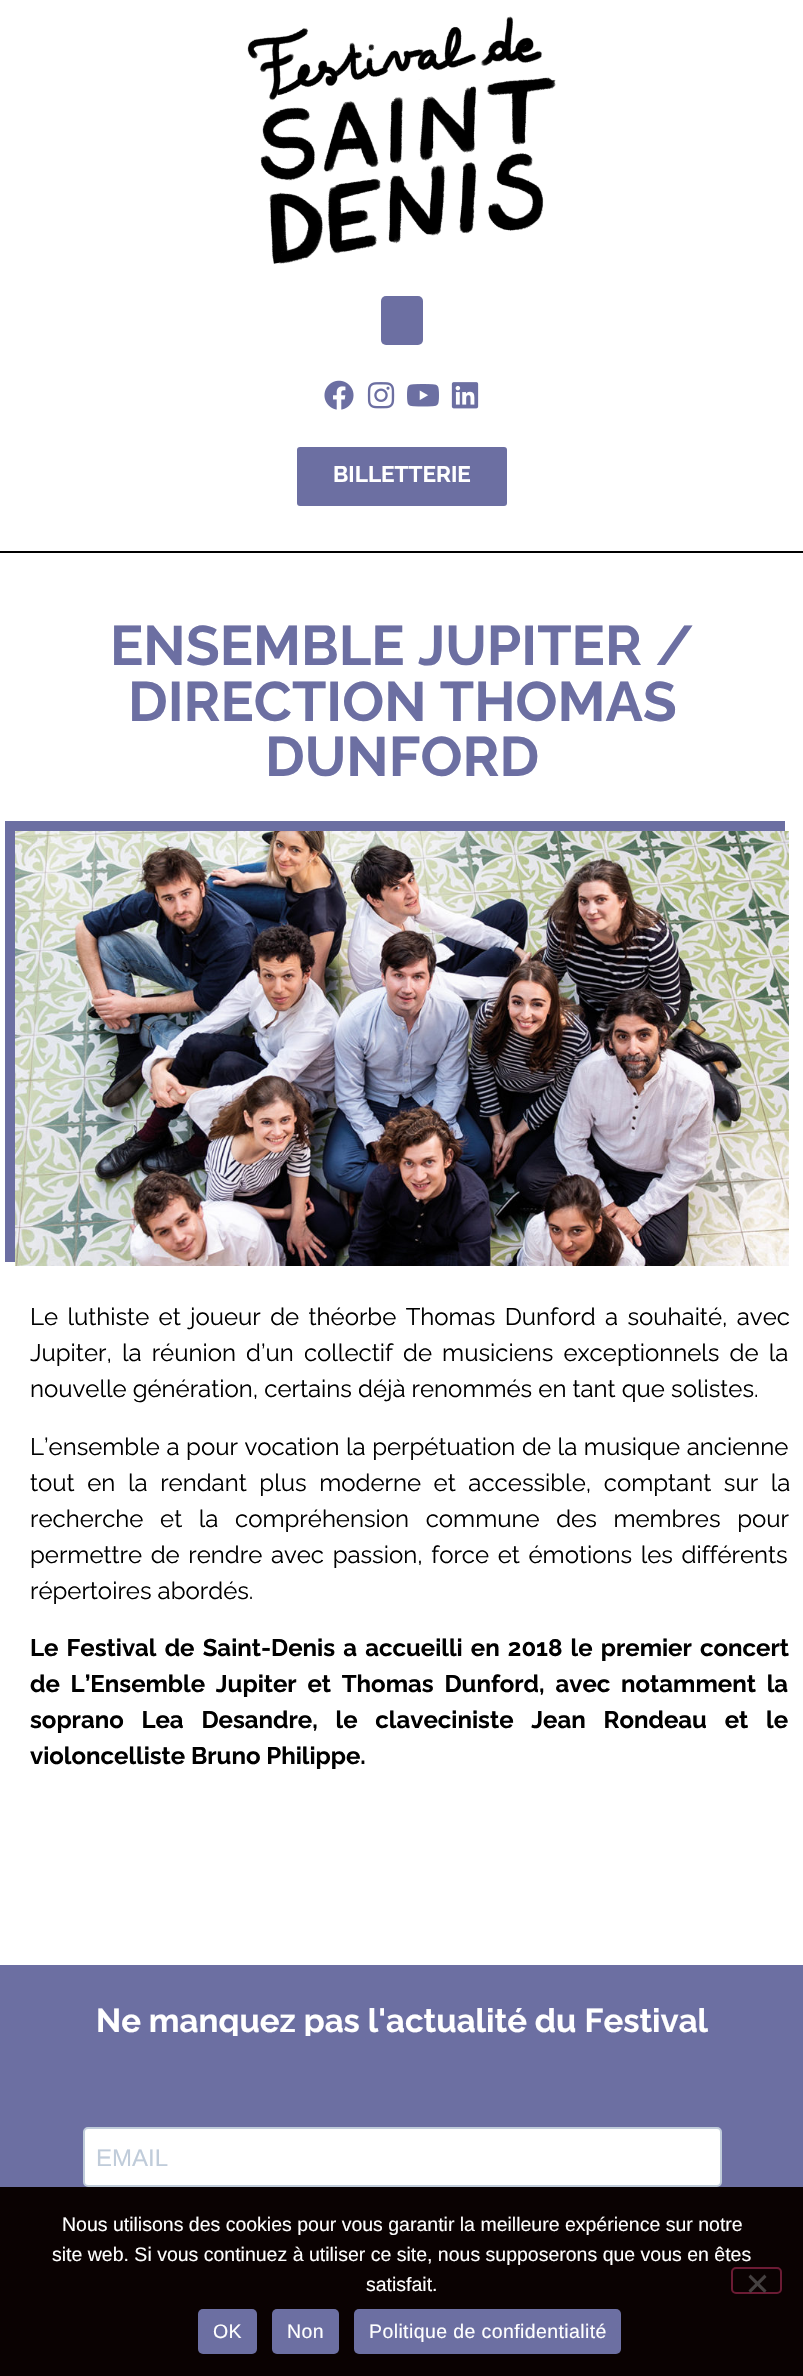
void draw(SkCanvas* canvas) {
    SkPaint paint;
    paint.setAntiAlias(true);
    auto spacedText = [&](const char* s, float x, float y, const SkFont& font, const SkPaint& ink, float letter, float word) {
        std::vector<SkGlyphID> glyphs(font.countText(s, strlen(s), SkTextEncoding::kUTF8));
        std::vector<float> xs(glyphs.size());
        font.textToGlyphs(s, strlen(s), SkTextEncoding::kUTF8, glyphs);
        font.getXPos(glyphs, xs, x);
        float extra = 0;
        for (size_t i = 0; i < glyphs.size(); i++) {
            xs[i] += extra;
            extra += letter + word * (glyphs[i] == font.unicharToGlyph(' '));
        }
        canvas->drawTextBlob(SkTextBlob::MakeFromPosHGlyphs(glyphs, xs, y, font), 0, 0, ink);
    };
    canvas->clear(0xFFFFFFFF);
    canvas->drawImageRect(SkImages::DeferredFromEncodedData(SkData::MakeFromFileName("img1.png")), SkRect::MakeXYWH(247, 16, 309, 248), SkSamplingOptions());
    paint.setColor(0xFF6C6FA2);
    canvas->drawRoundRect(SkRect::MakeXYWH(381, 296, 42, 49), 5, 5, paint);
    canvas->drawImageRect(SkImages::DeferredFromEncodedData(SkData::MakeFromFileName("img2.png")), SkRect::MakeXYWH(324, 380, 30, 30), SkSamplingOptions());
    canvas->drawImageRect(SkImages::DeferredFromEncodedData(SkData::MakeFromFileName("img3.png")), SkRect::MakeXYWH(367, 382, 28, 27), SkSamplingOptions());
    canvas->drawImageRect(SkImages::DeferredFromEncodedData(SkData::MakeFromFileName("img4.png")), SkRect::MakeXYWH(407, 384, 32, 23), SkSamplingOptions());
    canvas->drawImageRect(SkImages::DeferredFromEncodedData(SkData::MakeFromFileName("img5.png")), SkRect::MakeXYWH(451, 382, 28, 27), SkSamplingOptions());
    canvas->drawRoundRect(SkRect::MakeXYWH(297, 447, 210, 59), 3, 3, paint);
    SkFont font1(fontMgr->matchFamilyStyle("Raleway", SkFontStyle::Bold()), 22.5f);
    font1.setSubpixel(true);
    paint.setColor(0xFFFFFFFF);
    canvas->drawString("BILLETTERIE", 333, 482, font1, paint);
    paint.setColor(0xFF000000);
    canvas->drawRect(SkRect::MakeXYWH(0, 551, 803, 2), paint);
    SkFont font2(fontMgr->matchFamilyStyle("Raleway", SkFontStyle::Bold()), 55.5f);
    font2.setSubpixel(true);
    paint.setColor(0xFF6C6FA2);
    canvas->drawString("ENSEMBLE JUPITER /", 110, 665, font2, paint);
    canvas->drawString("DIRECTION THOMAS", 128, 721, font2, paint);
    canvas->drawString("DUNFORD", 265, 776, font2, paint);
    canvas->drawPath(SkPathBuilder().moveTo(5, 821).lineTo(5, 1262).lineTo(15, 1262).lineTo(15, 831).lineTo(785, 831).lineTo(785, 821).close().detach(), paint);
    canvas->drawImageRect(SkImages::DeferredFromEncodedData(SkData::MakeFromFileName("img6.png")), SkRect::MakeXYWH(15, 831, 774, 435), SkSamplingOptions());
    SkFont font3(fontMgr->matchFamilyStyle("Raleway", SkFontStyle::Normal()), 24);
    font3.setSubpixel(true);
    paint.setColor(0xFF000000);
    spacedText("Le luthiste et joueur de théorbe Thomas Dunford a souhaité, avec", 30, 1325, font3, paint, 0, 3.25f);
    spacedText("Jupiter, la réunion d’un collectif de musiciens exceptionnels de la", 30, 1361, font3, paint, 0, 4);
    canvas->drawString("nouvelle génération, certains déjà renommés en tant que solistes.", 30, 1397, font3, paint);
    spacedText("L’ensemble a pour vocation la perpétuation de la musique ancienne", 30, 1455, font3, paint, 0, 0.5f);
    spacedText("tout en la rendant plus moderne et accessible, comptant sur la", 30, 1491, font3, paint, 0, 6.5f);
    spacedText("recherche et la compréhension commune des membres pour", 30, 1527, font3, paint, 0, 10.5f);
    spacedText("permettre de rendre avec passion, force et émotions les différents", 30, 1563, font3, paint, 0, 2.5f);
    canvas->drawString("répertoires abordés.", 30, 1599, font3, paint);
    SkFont font4(fontMgr->matchFamilyStyle("Raleway", SkFontStyle::Bold()), 24);
    font4.setSubpixel(true);
    spacedText("Le Festival de Saint-Denis a accueilli en 2018 le premier concert", 30, 1656, font4, paint, 0, 2.4f);
    spacedText("de L’Ensemble Jupiter et Thomas Dunford, avec notamment la", 30, 1692, font4, paint, 0, 5);
    spacedText("soprano Lea Desandre, le claveciniste Jean Rondeau et le", 30, 1728, font4, paint, 0, 12);
    canvas->drawString("violoncelliste Bruno Philippe.", 30, 1764, font4, paint);
    paint.setColor(0xFF6C6FA2);
    canvas->drawRect(SkRect::MakeXYWH(0, 1965, 803, 222), paint);
    SkFont font5(fontMgr->matchFamilyStyle("Raleway", SkFontStyle::Bold()), 33);
    font5.setSubpixel(true);
    paint.setColor(0xFFFFFFFF);
    canvas->drawString("Ne manquez pas l'actualité du Festival", 96, 2032, font5, paint);
    paint.setColor(0xFF6C6FA2);
    canvas->drawRect(SkRect::MakeXYWH(232, 2036, 79, 4), paint);
    paint.setColor(0xFFFFFFFF);
    canvas->drawRoundRect(SkRect::MakeXYWH(84, 2128, 637, 58), 4, 4, paint);
    paint.setStyle(SkPaint::kStroke_Style);
    paint.setStrokeWidth(2);
    paint.setColor(0xFFC0CCDA);
    canvas->drawRoundRect(SkRect::MakeXYWH(84, 2128, 637, 58), 4, 4, paint);
    SkFont font6(fontMgr->matchFamilyStyle("Liberation Sans", SkFontStyle::Normal()), 24);
    font6.setSubpixel(true);
    paint.setStyle(SkPaint::kFill_Style);
    canvas->drawString("EMAIL", 96, 2166, font6, paint);
    paint.setColor(0xFF0A0202);
    canvas->drawRect(SkRect::MakeXYWH(0, 2187, 803, 189), paint);
    SkFont font7(fontMgr->matchFamilyStyle("Liberation Sans", SkFontStyle::Normal()), 19.5f);
    font7.setSubpixel(true);
    paint.setColor(0xFFFFFFFF);
    canvas->drawString("Nous utilisons des cookies pour vous garantir la meilleure expérience sur notre", 62, 2231, font7, paint);
    canvas->drawString("site web. Si vous continuez à utiliser ce site, nous supposerons que vous en êtes", 52, 2261, font7, paint);
    canvas->drawString("satisfait.", 366, 2291, font7, paint);
    paint.setStyle(SkPaint::kStroke_Style);
    paint.setColor(0xFF6B1B34);
    canvas->drawRoundRect(SkRect::MakeXYWH(732, 2268, 49, 25), 4, 4, paint);
    paint.setStyle(SkPaint::kFill_Style);
    paint.setColor(0xFF454141);
    canvas->drawPath(SkPathBuilder().moveTo(764.5f, 2274.5f).lineTo(766.5f, 2277).lineTo(750.5f, 2293).lineTo(748.5f, 2290.5f).close().detach(), paint);
    canvas->drawPath(SkPathBuilder().moveTo(748.5f, 2277).lineTo(750.5f, 2274.5f).lineTo(766.5f, 2290.5f).lineTo(764.5f, 2293).close().detach(), paint);
    paint.setColor(0xFF6C6FA2);
    canvas->drawRoundRect(SkRect::MakeXYWH(198, 2309, 59, 45), 5, 5, paint);
    paint.setColor(0xFFFFFFFF);
    spacedText("OK", 213, 2338, font7, paint, 0.4f, 0);
    paint.setColor(0xFF6C6FA2);
    canvas->drawRoundRect(SkRect::MakeXYWH(272, 2309, 67, 45), 5, 5, paint);
    paint.setColor(0xFFFFFFFF);
    spacedText("Non", 287, 2338, font7, paint, 0.4f, 0);
    paint.setColor(0xFF6C6FA2);
    canvas->drawRoundRect(SkRect::MakeXYWH(354, 2309, 267, 45), 5, 5, paint);
    paint.setColor(0xFFFFFFFF);
    spacedText("Politique de confidentialité", 369, 2338, font7, paint, 0.4f, 0);
}
